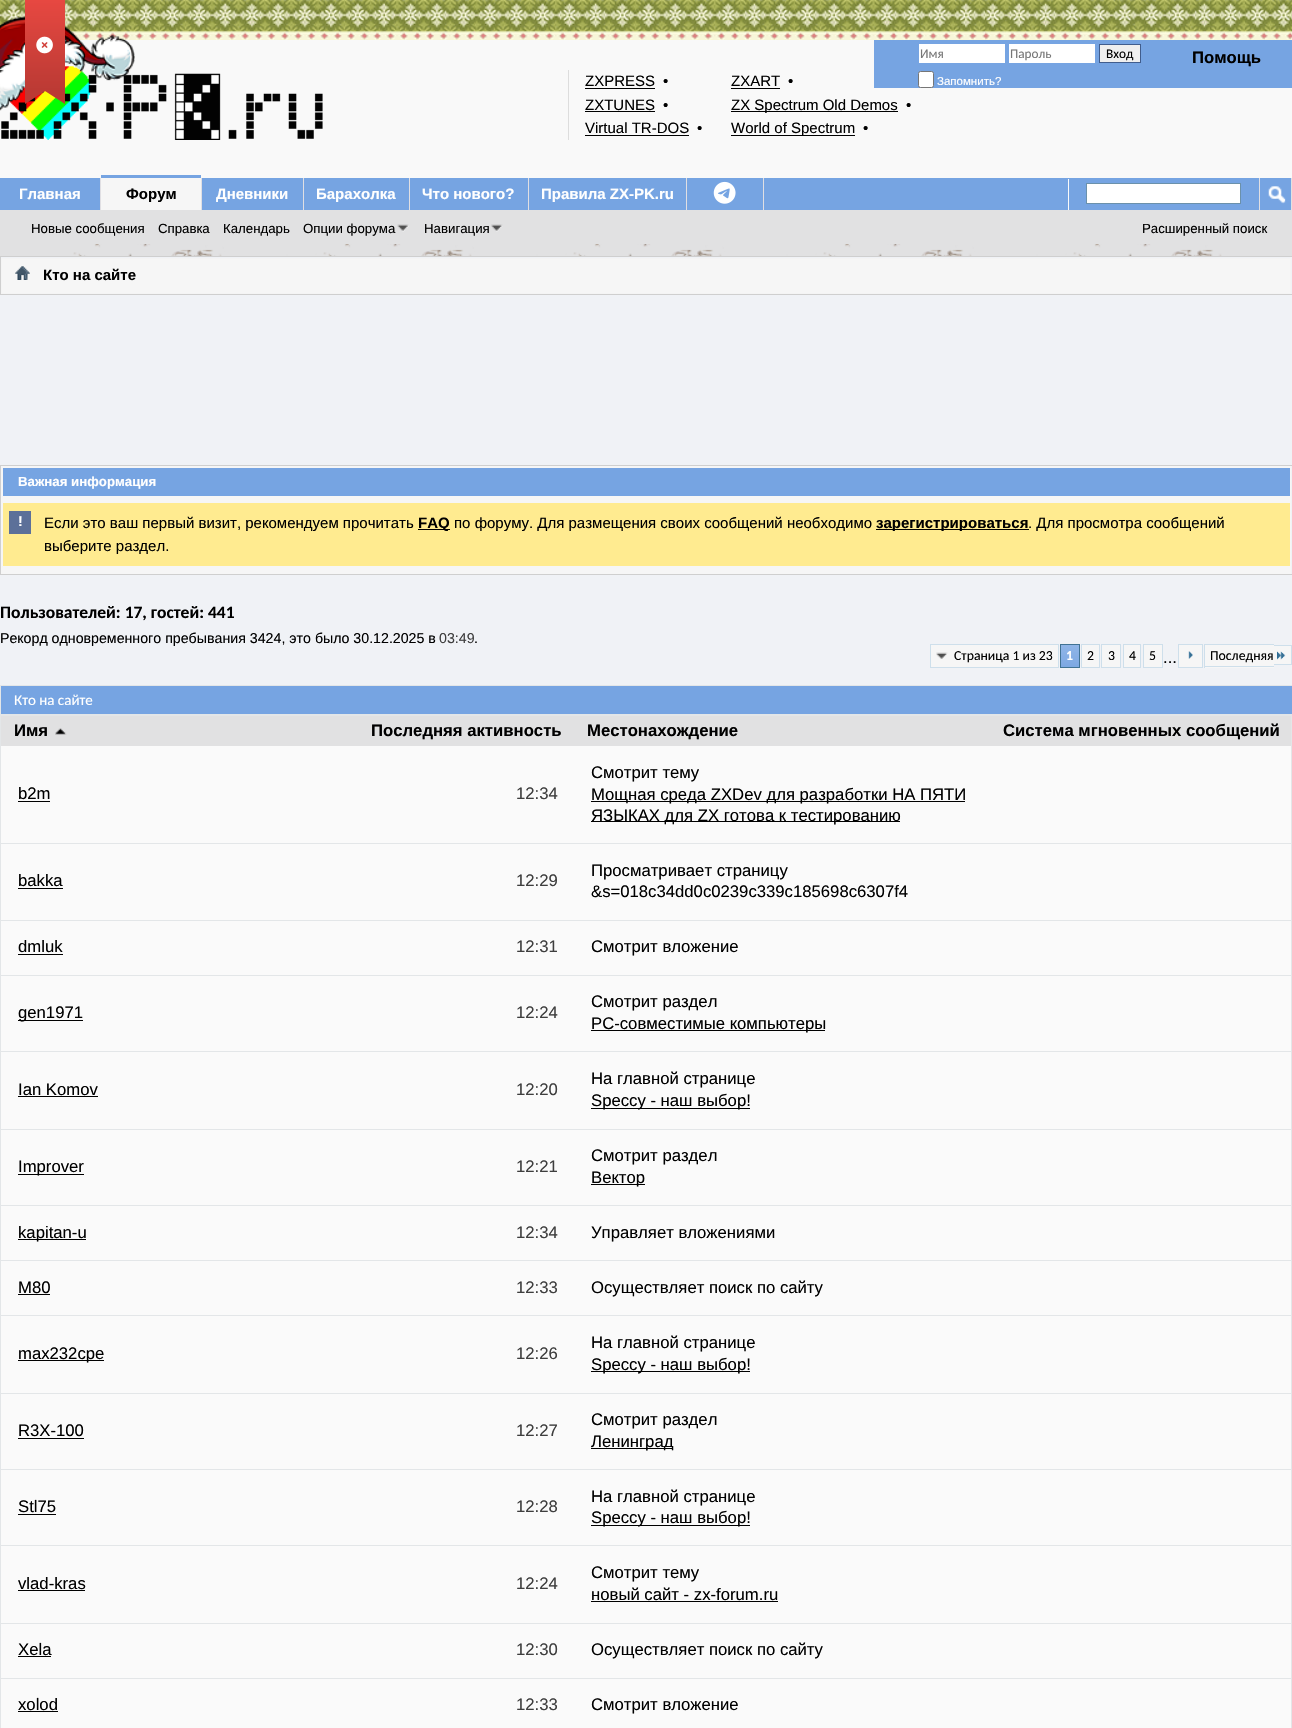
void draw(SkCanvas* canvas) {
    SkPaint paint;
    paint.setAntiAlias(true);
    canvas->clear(0xFFE1E1E2);
    canvas->drawImageRect(SkImages::DeferredFromEncodedData(SkData::MakeFromFileName("img1.png")), SkRect::MakeXYWH(73, 244, 1149, 12), SkSamplingOptions());
    canvas->drawImageRect(SkImages::DeferredFromEncodedData(SkData::MakeFromFileName("img2.png")), SkRect::MakeXYWH(0, 0, 1292, 40), SkSamplingOptions());
    paint.setColor(0xFFF9F9F9);
    canvas->drawRect(SkRect::MakeXYWH(0, 40, 1292, 138), paint);
    canvas->drawImageRect(SkImages::DeferredFromEncodedData(SkData::MakeFromFileName("img5.png")), SkRect::MakeXYWH(1, 66, 322, 74), SkSamplingOptions());
    canvas->drawImageRect(SkImages::DeferredFromEncodedData(SkData::MakeFromFileName("img4.png")), SkRect::MakeXYWH(0, 15, 135, 96), SkSamplingOptions());
    {
        const SkColor colors[] = {0xFFE74841, 0xFFBB3A34};
        const float stops[] = {0, 1};
        const SkPoint ends[] = {{45, 0}, {45, 91}};
        paint.setShader(SkGradientShader::MakeLinear(ends, colors, stops, 2, SkTileMode::kClamp));
        paint.setAlpha(255);
    }
    canvas->drawRect(SkRect::MakeXYWH(25, 0, 40, 91), paint);
    canvas->drawImageRect(SkImages::DeferredFromEncodedData(SkData::MakeFromFileName("img3.png")), SkRect::MakeXYWH(36, 36, 17, 18), SkSamplingOptions());
    paint.setShader(nullptr);
    paint.setColor(0xFFBB3A34);
    canvas->drawPath(SkPathBuilder().moveTo(65, 91).lineTo(65, 104).lineTo(45, 91).close().moveTo(25, 104).lineTo(25, 91).lineTo(45, 91).close().detach(), paint);
    paint.setColor(0xFF76A4E2);
    canvas->drawRect(SkRect::MakeXYWH(874, 40, 418, 48), paint);
    paint.setColor(0xFFFFFFFF);
    canvas->drawRect(SkRect::MakeXYWH(919, 44, 86, 19), paint);
    SkFont font1(fontMgr->matchFamilyStyle("Carlito", SkFontStyle::Normal()), 13.25f);
    font1.setSubpixel(true);
    paint.setColor(0xFF777777);
    canvas->drawString("Имя", 920, 58, font1, paint);
    paint.setColor(0xFFFFFFFF);
    canvas->drawRect(SkRect::MakeXYWH(1009, 44, 86, 19), paint);
    paint.setColor(0xFF777777);
    canvas->drawString("Пароль", 1010, 58, font1, paint);
    paint.setColor(0xFFEFEFEF);
    canvas->drawRect(SkRect::MakeXYWH(1099.5f, 44.5f, 41, 18), paint);
    paint.setStyle(SkPaint::kStroke_Style);
    paint.setStrokeWidth(1);
    paint.setColor(0xFF415D8D);
    canvas->drawRect(SkRect::MakeXYWH(1099.5f, 44.5f, 41, 18), paint);
    paint.setStyle(SkPaint::kFill_Style);
    paint.setColor(0xFF000000);
    canvas->drawString("Вход", 1106, 58, font1, paint);
    paint.setColor(0xFFFFFFFF);
    canvas->drawRoundRect(SkRect::MakeXYWH(918.5f, 71.5f, 15, 16), 2, 2, paint);
    paint.setStyle(SkPaint::kStroke_Style);
    paint.setColor(0xFF767676);
    canvas->drawRoundRect(SkRect::MakeXYWH(918.5f, 71.5f, 15, 16), 2, 2, paint);
    SkFont font2(fontMgr->matchFamilyStyle("Liberation Sans", SkFontStyle::Normal()), 11.5f);
    font2.setSubpixel(true);
    paint.setStyle(SkPaint::kFill_Style);
    paint.setColor(0xFFFFFFFF);
    canvas->drawString("Запомнить?", 937, 85, font2, paint);
    SkFont font3(fontMgr->matchFamilyStyle("Liberation Sans", SkFontStyle::Bold()), 16.7f);
    font3.setSubpixel(true);
    paint.setColor(0xFF000000);
    canvas->drawString("Помощь", 1192, 63, font3, paint);
    paint.setColor(0xFFDDDDDD);
    canvas->drawRect(SkRect::MakeXYWH(568, 70, 1, 70), paint);
    SkFont font4(fontMgr->matchFamilyStyle("Liberation Sans", SkFontStyle::Normal()), 15);
    font4.setSubpixel(true);
    paint.setColor(0xFF000000);
    canvas->drawString("ZXPRESS", 585, 86, font4, paint);
    canvas->drawRect(SkRect::MakeXYWH(585, 88, 70, 1), paint);
    canvas->drawString("•", 663, 86, font4, paint);
    canvas->drawString("ZXART", 731, 86, font4, paint);
    canvas->drawRect(SkRect::MakeXYWH(731, 88, 49, 1), paint);
    canvas->drawString("•", 788, 86, font4, paint);
    canvas->drawString("ZXTUNES", 585, 110, font4, paint);
    canvas->drawRect(SkRect::MakeXYWH(585, 111, 70, 1), paint);
    canvas->drawString("•", 663, 110, font4, paint);
    canvas->drawRect(SkRect::MakeXYWH(731, 111, 167, 1), paint);
    canvas->drawString("ZX Spectrum Old Demos", 731, 110, font4, paint);
    canvas->drawString("•", 906, 110, font4, paint);
    canvas->drawString("Virtual TR-DOS", 585, 133, font4, paint);
    canvas->drawRect(SkRect::MakeXYWH(585, 135, 104, 1), paint);
    canvas->drawString("•", 697, 133, font4, paint);
    canvas->drawRect(SkRect::MakeXYWH(731, 135, 124, 1), paint);
    canvas->drawString("World of Spectrum", 731, 133, font4, paint);
    canvas->drawString("•", 863, 133, font4, paint);
    paint.setColor(0xFF76A4E2);
    canvas->drawRect(SkRect::MakeXYWH(0, 178, 1291, 32), paint);
    paint.setColor(0xFFE0DFE3);
    canvas->drawRect(SkRect::MakeXYWH(100, 178, 1, 32), paint);
    SkFont font5(fontMgr->matchFamilyStyle("Liberation Sans", SkFontStyle::Bold()), 15);
    font5.setSubpixel(true);
    paint.setColor(0xFFFFFFFF);
    canvas->drawString("Главная", 19, 199, font5, paint);
    paint.setColor(0xFFE0DFE3);
    canvas->drawRect(SkRect::MakeXYWH(201, 178, 1, 32), paint);
    paint.setColor(0xFFF6F6F6);
    canvas->drawRect(SkRect::MakeXYWH(101, 178, 100, 32), paint);
    paint.setColor(0xFF76A4E2);
    canvas->drawRect(SkRect::MakeXYWH(101, 175, 100, 3), paint);
    paint.setColor(0xFF000000);
    canvas->drawString("Форум", 126, 199, font5, paint);
    paint.setColor(0xFFE0DFE3);
    canvas->drawRect(SkRect::MakeXYWH(303, 178, 1, 32), paint);
    paint.setColor(0xFFFFFFFF);
    canvas->drawString("Дневники", 216, 199, font5, paint);
    paint.setColor(0xFFE0DFE3);
    canvas->drawRect(SkRect::MakeXYWH(409, 178, 1, 32), paint);
    paint.setColor(0xFFFFFFFF);
    canvas->drawString("Барахолка", 316, 199, font5, paint);
    paint.setColor(0xFFE0DFE3);
    canvas->drawRect(SkRect::MakeXYWH(528, 178, 1, 32), paint);
    paint.setColor(0xFFFFFFFF);
    canvas->drawString("Что нового?", 422, 199, font5, paint);
    paint.setColor(0xFFE0DFE3);
    canvas->drawRect(SkRect::MakeXYWH(686, 178, 1, 32), paint);
    paint.setColor(0xFFFFFFFF);
    canvas->drawString("Правила ZX-PK.ru", 541, 199, font5, paint);
    paint.setColor(0xFFE0DFE3);
    canvas->drawRect(SkRect::MakeXYWH(763, 178, 1, 32), paint);
    canvas->drawImageRect(SkImages::DeferredFromEncodedData(SkData::MakeFromFileName("img6.png")), SkRect::MakeXYWH(713, 181, 23, 23), SkSamplingOptions());
    SkFont font6(fontMgr->matchFamilyStyle("Liberation Sans", SkFontStyle::Normal()), 13.25f);
    font6.setSubpixel(true);
    paint.setColor(0xFF000000);
    canvas->drawString("Новые сообщения", 31, 233, font6, paint);
    canvas->drawString("Справка", 158, 233, font6, paint);
    canvas->drawString("Календарь", 223, 233, font6, paint);
    canvas->drawString("Опции форума", 303, 233, font6, paint);
    canvas->drawImageRect(SkImages::DeferredFromEncodedData(SkData::MakeFromFileName("img7.png")), SkRect::MakeXYWH(397, 224, 12, 8), SkSamplingOptions());
    canvas->drawString("Навигация", 424, 233, font6, paint);
    canvas->drawImageRect(SkImages::DeferredFromEncodedData(SkData::MakeFromFileName("img8.png")), SkRect::MakeXYWH(491, 224, 12, 8), SkSamplingOptions());
    paint.setColor(0xFFFAFAFA);
    canvas->drawRect(SkRect::MakeXYWH(1068, 179, 1, 31), paint);
    paint.setColor(0xFFFFFFFF);
    canvas->drawRect(SkRect::MakeXYWH(1086.5f, 183.5f, 154, 20), paint);
    paint.setStyle(SkPaint::kStroke_Style);
    paint.setColor(0xFF6B91AB);
    canvas->drawRect(SkRect::MakeXYWH(1086.5f, 183.5f, 154, 20), paint);
    paint.setStyle(SkPaint::kFill_Style);
    paint.setColor(0xFFE0DFE3);
    canvas->drawRect(SkRect::MakeXYWH(1259, 178, 1, 32), paint);
    canvas->drawImageRect(SkImages::DeferredFromEncodedData(SkData::MakeFromFileName("img9.png")), SkRect::MakeXYWH(1268, 186, 18, 18), SkSamplingOptions());
    paint.setColor(0xFF000000);
    canvas->drawString("Расширенный поиск", 1142, 233, font6, paint);
    paint.setColor(0xFFF0F2F6);
    canvas->drawRect(SkRect::MakeXYWH(0, 257, 1292, 428), paint);
    paint.setStyle(SkPaint::kStroke_Style);
    paint.setColor(0xFFCFCFCF);
    canvas->drawRect(SkRect::MakeXYWH(0.5f, 256.5f, 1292, 38), paint);
    paint.setStyle(SkPaint::kFill_Style);
    paint.setColor(0xFFF6F6F6);
    canvas->drawRect(SkRect::MakeXYWH(1.5f, 258.5f, 1289, 35), paint);
    paint.setStyle(SkPaint::kStroke_Style);
    paint.setColor(0xFFF4F4F4);
    canvas->drawRect(SkRect::MakeXYWH(1.5f, 258.5f, 1289, 35), paint);
    canvas->drawImageRect(SkImages::DeferredFromEncodedData(SkData::MakeFromFileName("img10.png")), SkRect::MakeXYWH(15, 266, 15, 14), SkSamplingOptions());
    paint.setStyle(SkPaint::kFill_Style);
    paint.setColor(0xFF000000);
    canvas->drawString("Кто на сайте", 43, 280, font5, paint);
    paint.setStyle(SkPaint::kStroke_Style);
    paint.setColor(0xFFCFCFCF);
    canvas->drawRect(SkRect::MakeXYWH(0.5f, 465.5f, 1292, 109), paint);
    paint.setStyle(SkPaint::kFill_Style);
    paint.setColor(0xFFF6F6F6);
    canvas->drawRect(SkRect::MakeXYWH(1, 466, 1290, 108), paint);
    paint.setColor(0xFF76A4E2);
    canvas->drawRect(SkRect::MakeXYWH(3, 468, 1287, 28), paint);
    SkFont font7(fontMgr->matchFamilyStyle("Liberation Sans", SkFontStyle::Bold()), 13.25f);
    font7.setSubpixel(true);
    paint.setColor(0xFFFFFFFF);
    canvas->drawString("Важная информация", 18, 486, font7, paint);
    paint.setColor(0xFFFFEB90);
    canvas->drawRect(SkRect::MakeXYWH(3, 503, 1287, 63), paint);
    paint.setColor(0xFF5C7099);
    canvas->drawRect(SkRect::MakeXYWH(9, 511, 22, 23), paint);
    SkFont font8(fontMgr->matchFamilyStyle("Liberation Sans", SkFontStyle::Bold()), 14.2f);
    font8.setSubpixel(true);
    paint.setColor(0xFFFFFFFF);
    canvas->drawString("!", 18, 526, font8, paint);
    paint.setColor(0xFF000000);
    canvas->drawString("Если это ваш первый визит, рекомендуем прочитать", 44, 528, font4, paint);
    canvas->drawRect(SkRect::MakeXYWH(418, 529, 32, 1), paint);
    canvas->drawString("FAQ", 418, 528, font5, paint);
    canvas->drawString("по форуму. Для размещения своих сообщений необходимо", 454, 528, font4, paint);
    canvas->drawRect(SkRect::MakeXYWH(876, 529, 153, 1), paint);
    canvas->drawString("зарегистрироваться", 876, 528, font5, paint);
    canvas->drawString(". Для просмотра сообщений", 1028, 528, font4, paint);
    canvas->drawString("выберите раздел.", 44, 551, font4, paint);
    SkFont font9(fontMgr->matchFamilyStyle("Carlito", SkFontStyle::Bold()), 17.5f);
    font9.setSubpixel(true);
    canvas->drawString("Пользователей: 17, гостей: 441", 0, 618, font9, paint);
    SkFont font10(fontMgr->matchFamilyStyle("Liberation Sans", SkFontStyle::Normal()), 14.2f);
    font10.setSubpixel(true);
    canvas->drawString("Рекорд одновременного пребывания 3424, это было 30.12.2025 в", 0, 643, font10, paint);
    paint.setColor(0xFF3E3E3E);
    canvas->drawString("03:49", 439, 643, font10, paint);
    paint.setColor(0xFF000000);
    canvas->drawString(".", 474, 643, font10, paint);
    paint.setColor(0xFFF6F6F6);
    canvas->drawRect(SkRect::MakeXYWH(931, 645, 127, 22), paint);
    canvas->drawImageRect(SkImages::DeferredFromEncodedData(SkData::MakeFromFileName("img11.png")), SkRect::MakeXYWH(936, 652, 12, 7), SkSamplingOptions());
    paint.setStyle(SkPaint::kStroke_Style);
    paint.setColor(0xFFCEDFEB);
    canvas->drawRect(SkRect::MakeXYWH(930.5f, 644.5f, 128, 23), paint);
    SkFont font11(fontMgr->matchFamilyStyle("Carlito", SkFontStyle::Normal()), 13.75f);
    font11.setSubpixel(true);
    paint.setStyle(SkPaint::kFill_Style);
    paint.setColor(0xFF000000);
    canvas->drawString("Страница 1 из 23", 954, 660, font11, paint);
    paint.setColor(0xFF76A4E2);
    canvas->drawRect(SkRect::MakeXYWH(1061, 645, 18, 22), paint);
    canvas->drawImageRect(SkImages::DeferredFromEncodedData(SkData::MakeFromFileName("img12.png")), SkRect::MakeXYWH(1061, 645, 18, 22), SkSamplingOptions());
    paint.setStyle(SkPaint::kStroke_Style);
    paint.setColor(0xFF417394);
    canvas->drawRect(SkRect::MakeXYWH(1060.5f, 644.5f, 19, 23), paint);
    SkFont font12(fontMgr->matchFamilyStyle("Carlito", SkFontStyle::Bold()), 13.75f);
    font12.setSubpixel(true);
    paint.setStyle(SkPaint::kFill_Style);
    paint.setColor(0xFFFFFFFF);
    canvas->drawString("1", 1066, 660, font12, paint);
    paint.setColor(0xFFF6F6F6);
    canvas->drawRect(SkRect::MakeXYWH(1081.5f, 644.5f, 18, 23), paint);
    paint.setStyle(SkPaint::kStroke_Style);
    paint.setColor(0xFFCEDFEB);
    canvas->drawRect(SkRect::MakeXYWH(1081.5f, 644.5f, 18, 23), paint);
    paint.setStyle(SkPaint::kFill_Style);
    paint.setColor(0xFF000000);
    canvas->drawString("2", 1087, 660, font11, paint);
    paint.setColor(0xFFF6F6F6);
    canvas->drawRect(SkRect::MakeXYWH(1101.5f, 644.5f, 19, 23), paint);
    paint.setStyle(SkPaint::kStroke_Style);
    paint.setColor(0xFFCEDFEB);
    canvas->drawRect(SkRect::MakeXYWH(1101.5f, 644.5f, 19, 23), paint);
    paint.setStyle(SkPaint::kFill_Style);
    paint.setColor(0xFF000000);
    canvas->drawString("3", 1108, 660, font11, paint);
    paint.setColor(0xFFF6F6F6);
    canvas->drawRect(SkRect::MakeXYWH(1123.5f, 644.5f, 17, 23), paint);
    paint.setStyle(SkPaint::kStroke_Style);
    paint.setColor(0xFFCEDFEB);
    canvas->drawRect(SkRect::MakeXYWH(1123.5f, 644.5f, 17, 23), paint);
    paint.setStyle(SkPaint::kFill_Style);
    paint.setColor(0xFF000000);
    canvas->drawString("4", 1129, 660, font11, paint);
    paint.setColor(0xFFF6F6F6);
    canvas->drawRect(SkRect::MakeXYWH(1143.5f, 644.5f, 19, 23), paint);
    paint.setStyle(SkPaint::kStroke_Style);
    paint.setColor(0xFFCEDFEB);
    canvas->drawRect(SkRect::MakeXYWH(1143.5f, 644.5f, 19, 23), paint);
    paint.setStyle(SkPaint::kFill_Style);
    paint.setColor(0xFF000000);
    canvas->drawString("5", 1149, 660, font11, paint);
    SkFont font13(fontMgr->matchFamilyStyle("Liberation Sans", SkFontStyle::Normal()), 16.7f);
    font13.setSubpixel(true);
    canvas->drawString("...", 1163, 663, font13, paint);
    paint.setColor(0xFFF6F6F6);
    canvas->drawRect(SkRect::MakeXYWH(1178.5f, 644.5f, 24, 23), paint);
    paint.setStyle(SkPaint::kStroke_Style);
    paint.setColor(0xFFCEDFEB);
    canvas->drawRect(SkRect::MakeXYWH(1178.5f, 644.5f, 24, 23), paint);
    canvas->drawImageRect(SkImages::DeferredFromEncodedData(SkData::MakeFromFileName("img13.png")), SkRect::MakeXYWH(1188, 651, 5, 8), SkSamplingOptions());
    paint.setStyle(SkPaint::kFill_Style);
    paint.setColor(0xFFF6F6F6);
    canvas->drawRect(SkRect::MakeXYWH(1205, 645, 69, 23), paint);
    paint.setColor(0xFF000000);
    canvas->drawString("Последняя", 1210, 660, font11, paint);
    paint.setColor(0xFFCEDFEB);
    canvas->drawRect(SkRect::MakeXYWH(1204, 644, 70, 1), paint);
    canvas->drawRect(SkRect::MakeXYWH(1204, 666, 70, 1), paint);
    canvas->drawRect(SkRect::MakeXYWH(1204, 644, 1, 24), paint);
    paint.setColor(0xFFF6F6F6);
    canvas->drawRect(SkRect::MakeXYWH(1274, 646, 17, 18), paint);
    paint.setColor(0xFFCEDFEB);
    canvas->drawRect(SkRect::MakeXYWH(1274, 645, 18, 1), paint);
    canvas->drawRect(SkRect::MakeXYWH(1291, 645, 1, 20), paint);
    canvas->drawRect(SkRect::MakeXYWH(1274, 664, 18, 1), paint);
    canvas->drawImageRect(SkImages::DeferredFromEncodedData(SkData::MakeFromFileName("img14.png")), SkRect::MakeXYWH(1277, 651, 9, 9), SkSamplingOptions());
    paint.setColor(0xFF76A4E2);
    canvas->drawRect(SkRect::MakeXYWH(0.5f, 685.5f, 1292, 29), paint);
    paint.setStyle(SkPaint::kStroke_Style);
    paint.setColor(0xFFE3E6E8);
    canvas->drawRect(SkRect::MakeXYWH(0.5f, 685.5f, 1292, 29), paint);
    SkFont font14(fontMgr->matchFamilyStyle("Carlito", SkFontStyle::Normal()), 15);
    font14.setSubpixel(true);
    paint.setStyle(SkPaint::kFill_Style);
    paint.setColor(0xFFFFFFFF);
    canvas->drawString("Кто на сайте", 14, 705, font14, paint);
    paint.setColor(0xFFFAFAFA);
    canvas->drawRect(SkRect::MakeXYWH(1, 746, 1290, 982), paint);
    paint.setColor(0xFFE3E6E8);
    canvas->drawRect(SkRect::MakeXYWH(1291, 715, 1, 1013), paint);
    canvas->drawRect(SkRect::MakeXYWH(0, 715, 1, 1013), paint);
    canvas->drawRect(SkRect::MakeXYWH(1, 715, 1290, 1), paint);
    paint.setColor(0xFF000000);
    canvas->drawString("Имя", 14, 736, font3, paint);
    canvas->drawImageRect(SkImages::DeferredFromEncodedData(SkData::MakeFromFileName("img15.png")), SkRect::MakeXYWH(55, 728, 12, 7), SkSamplingOptions());
    canvas->drawString("Последняя активность", 371, 736, font3, paint);
    canvas->drawString("Местонахождение", 587, 736, font3, paint);
    canvas->drawString("Система мгновенных сообщений", 1003, 736, font3, paint);
    canvas->drawString("b2m", 18, 799, font13, paint);
    canvas->drawRect(SkRect::MakeXYWH(18, 801, 32, 1), paint);
    paint.setColor(0xFF3E3E3E);
    canvas->drawString("12:34", 516, 799, font13, paint);
    paint.setColor(0xFF000000);
    canvas->drawString("Смотрит тему", 591, 778, font13, paint);
    canvas->drawRect(SkRect::MakeXYWH(591, 801, 374, 1), paint);
    canvas->drawString("Мощная среда ZXDev для разработки НА ПЯТИ", 591, 800, font13, paint);
    canvas->drawRect(SkRect::MakeXYWH(591, 821, 309, 1), paint);
    canvas->drawString("ЯЗЫКАХ для ZX готова к тестированию", 591, 821, font13, paint);
    paint.setColor(0xFFE3E6E8);
    canvas->drawRect(SkRect::MakeXYWH(1, 843, 1291, 1), paint);
    paint.setColor(0xFF000000);
    canvas->drawString("bakka", 18, 886, font13, paint);
    canvas->drawRect(SkRect::MakeXYWH(18, 888, 45, 1), paint);
    paint.setColor(0xFF3E3E3E);
    canvas->drawString("12:29", 516, 886, font13, paint);
    paint.setColor(0xFF000000);
    canvas->drawString("Просматривает страницу", 591, 876, font13, paint);
    canvas->drawString("&s=018c34dd0c0239c339c185698c6307f4", 591, 897, font13, paint);
    paint.setColor(0xFFE3E6E8);
    canvas->drawRect(SkRect::MakeXYWH(1, 920, 1291, 1), paint);
    paint.setColor(0xFF000000);
    canvas->drawString("dmluk", 18, 952, font13, paint);
    canvas->drawRect(SkRect::MakeXYWH(18, 954, 45, 1), paint);
    paint.setColor(0xFF3E3E3E);
    canvas->drawString("12:31", 516, 952, font13, paint);
    paint.setColor(0xFF000000);
    canvas->drawString("Смотрит вложение", 591, 952, font13, paint);
    paint.setColor(0xFFE3E6E8);
    canvas->drawRect(SkRect::MakeXYWH(1, 975, 1291, 1), paint);
    paint.setColor(0xFF000000);
    canvas->drawRect(SkRect::MakeXYWH(18, 1020, 65, 1), paint);
    canvas->drawString("gen1971", 18, 1018, font13, paint);
    paint.setColor(0xFF3E3E3E);
    canvas->drawString("12:24", 516, 1018, font13, paint);
    paint.setColor(0xFF000000);
    canvas->drawString("Смотрит раздел", 591, 1007, font13, paint);
    canvas->drawRect(SkRect::MakeXYWH(591, 1030, 234, 1), paint);
    canvas->drawString("PC-совместимые компьютеры", 591, 1029, font13, paint);
    paint.setColor(0xFFE3E6E8);
    canvas->drawRect(SkRect::MakeXYWH(1, 1051, 1291, 1), paint);
    paint.setColor(0xFF000000);
    canvas->drawString("Ian Komov", 18, 1095, font13, paint);
    canvas->drawRect(SkRect::MakeXYWH(18, 1096, 80, 1), paint);
    paint.setColor(0xFF3E3E3E);
    canvas->drawString("12:20", 516, 1095, font13, paint);
    paint.setColor(0xFF000000);
    canvas->drawString("На главной странице", 591, 1084, font13, paint);
    canvas->drawRect(SkRect::MakeXYWH(591, 1108, 159, 1), paint);
    canvas->drawString("Speccy - наш выбор!", 591, 1106, font13, paint);
    paint.setColor(0xFFE3E6E8);
    canvas->drawRect(SkRect::MakeXYWH(1, 1129, 1291, 1), paint);
    paint.setColor(0xFF000000);
    canvas->drawRect(SkRect::MakeXYWH(18, 1174, 66, 1), paint);
    canvas->drawString("Improver", 18, 1172, font13, paint);
    paint.setColor(0xFF3E3E3E);
    canvas->drawString("12:21", 516, 1172, font13, paint);
    paint.setColor(0xFF000000);
    canvas->drawString("Смотрит раздел", 591, 1161, font13, paint);
    canvas->drawRect(SkRect::MakeXYWH(591, 1184, 54, 1), paint);
    canvas->drawString("Вектор", 591, 1183, font13, paint);
    paint.setColor(0xFFE3E6E8);
    canvas->drawRect(SkRect::MakeXYWH(1, 1205, 1291, 1), paint);
    paint.setColor(0xFF000000);
    canvas->drawRect(SkRect::MakeXYWH(18, 1239, 68, 1), paint);
    canvas->drawString("kapitan-u", 18, 1238, font13, paint);
    paint.setColor(0xFF3E3E3E);
    canvas->drawString("12:34", 516, 1238, font13, paint);
    paint.setColor(0xFF000000);
    canvas->drawString("Управляет вложениями", 591, 1238, font13, paint);
    paint.setColor(0xFFE3E6E8);
    canvas->drawRect(SkRect::MakeXYWH(1, 1260, 1291, 1), paint);
    paint.setColor(0xFF000000);
    canvas->drawString("M80", 18, 1293, font13, paint);
    canvas->drawRect(SkRect::MakeXYWH(18, 1294, 32, 1), paint);
    paint.setColor(0xFF3E3E3E);
    canvas->drawString("12:33", 516, 1293, font13, paint);
    paint.setColor(0xFF000000);
    canvas->drawString("Осуществляет поиск по сайту", 591, 1293, font13, paint);
    paint.setColor(0xFFE3E6E8);
    canvas->drawRect(SkRect::MakeXYWH(1, 1315, 1291, 1), paint);
    paint.setColor(0xFF000000);
    canvas->drawRect(SkRect::MakeXYWH(18, 1360, 86, 1), paint);
    canvas->drawString("max232cpe", 18, 1359, font13, paint);
    paint.setColor(0xFF3E3E3E);
    canvas->drawString("12:26", 516, 1359, font13, paint);
    paint.setColor(0xFF000000);
    canvas->drawString("На главной странице", 591, 1348, font13, paint);
    canvas->drawRect(SkRect::MakeXYWH(591, 1371, 159, 1), paint);
    canvas->drawString("Speccy - наш выбор!", 591, 1370, font13, paint);
    paint.setColor(0xFFE3E6E8);
    canvas->drawRect(SkRect::MakeXYWH(1, 1393, 1291, 1), paint);
    paint.setColor(0xFF000000);
    canvas->drawString("R3X-100", 18, 1436, font13, paint);
    canvas->drawRect(SkRect::MakeXYWH(18, 1438, 66, 1), paint);
    paint.setColor(0xFF3E3E3E);
    canvas->drawString("12:27", 516, 1436, font13, paint);
    paint.setColor(0xFF000000);
    canvas->drawString("Смотрит раздел", 591, 1425, font13, paint);
    canvas->drawRect(SkRect::MakeXYWH(591, 1448, 82, 1), paint);
    canvas->drawString("Ленинград", 591, 1447, font13, paint);
    paint.setColor(0xFFE3E6E8);
    canvas->drawRect(SkRect::MakeXYWH(1, 1469, 1291, 1), paint);
    paint.setColor(0xFF000000);
    canvas->drawString("Stl75", 18, 1512, font13, paint);
    canvas->drawRect(SkRect::MakeXYWH(18, 1514, 38, 1), paint);
    paint.setColor(0xFF3E3E3E);
    canvas->drawString("12:28", 516, 1512, font13, paint);
    paint.setColor(0xFF000000);
    canvas->drawString("На главной странице", 591, 1502, font13, paint);
    canvas->drawRect(SkRect::MakeXYWH(591, 1525, 159, 1), paint);
    canvas->drawString("Speccy - наш выбор!", 591, 1523, font13, paint);
    paint.setColor(0xFFE3E6E8);
    canvas->drawRect(SkRect::MakeXYWH(1, 1545, 1291, 1), paint);
    paint.setColor(0xFF000000);
    canvas->drawString("vlad-kras", 18, 1589, font13, paint);
    canvas->drawRect(SkRect::MakeXYWH(18, 1590, 67, 1), paint);
    paint.setColor(0xFF3E3E3E);
    canvas->drawString("12:24", 516, 1589, font13, paint);
    paint.setColor(0xFF000000);
    canvas->drawString("Смотрит тему", 591, 1578, font13, paint);
    canvas->drawString("новый сайт - zx-forum.ru", 591, 1600, font13, paint);
    canvas->drawRect(SkRect::MakeXYWH(591, 1601, 187, 1), paint);
    paint.setColor(0xFFE3E6E8);
    canvas->drawRect(SkRect::MakeXYWH(1, 1623, 1291, 1), paint);
    paint.setColor(0xFF000000);
    canvas->drawString("Xela", 18, 1655, font13, paint);
    canvas->drawRect(SkRect::MakeXYWH(18, 1656, 33, 1), paint);
    paint.setColor(0xFF3E3E3E);
    canvas->drawString("12:30", 516, 1655, font13, paint);
    paint.setColor(0xFF000000);
    canvas->drawString("Осуществляет поиск по сайту", 591, 1655, font13, paint);
    paint.setColor(0xFFE3E6E8);
    canvas->drawRect(SkRect::MakeXYWH(1, 1678, 1291, 1), paint);
    paint.setColor(0xFF000000);
    canvas->drawString("xolod", 18, 1710, font13, paint);
    canvas->drawRect(SkRect::MakeXYWH(18, 1711, 40, 1), paint);
    paint.setColor(0xFF3E3E3E);
    canvas->drawString("12:33", 516, 1710, font13, paint);
    paint.setColor(0xFF000000);
    canvas->drawString("Смотрит вложение", 591, 1710, font13, paint);
}
